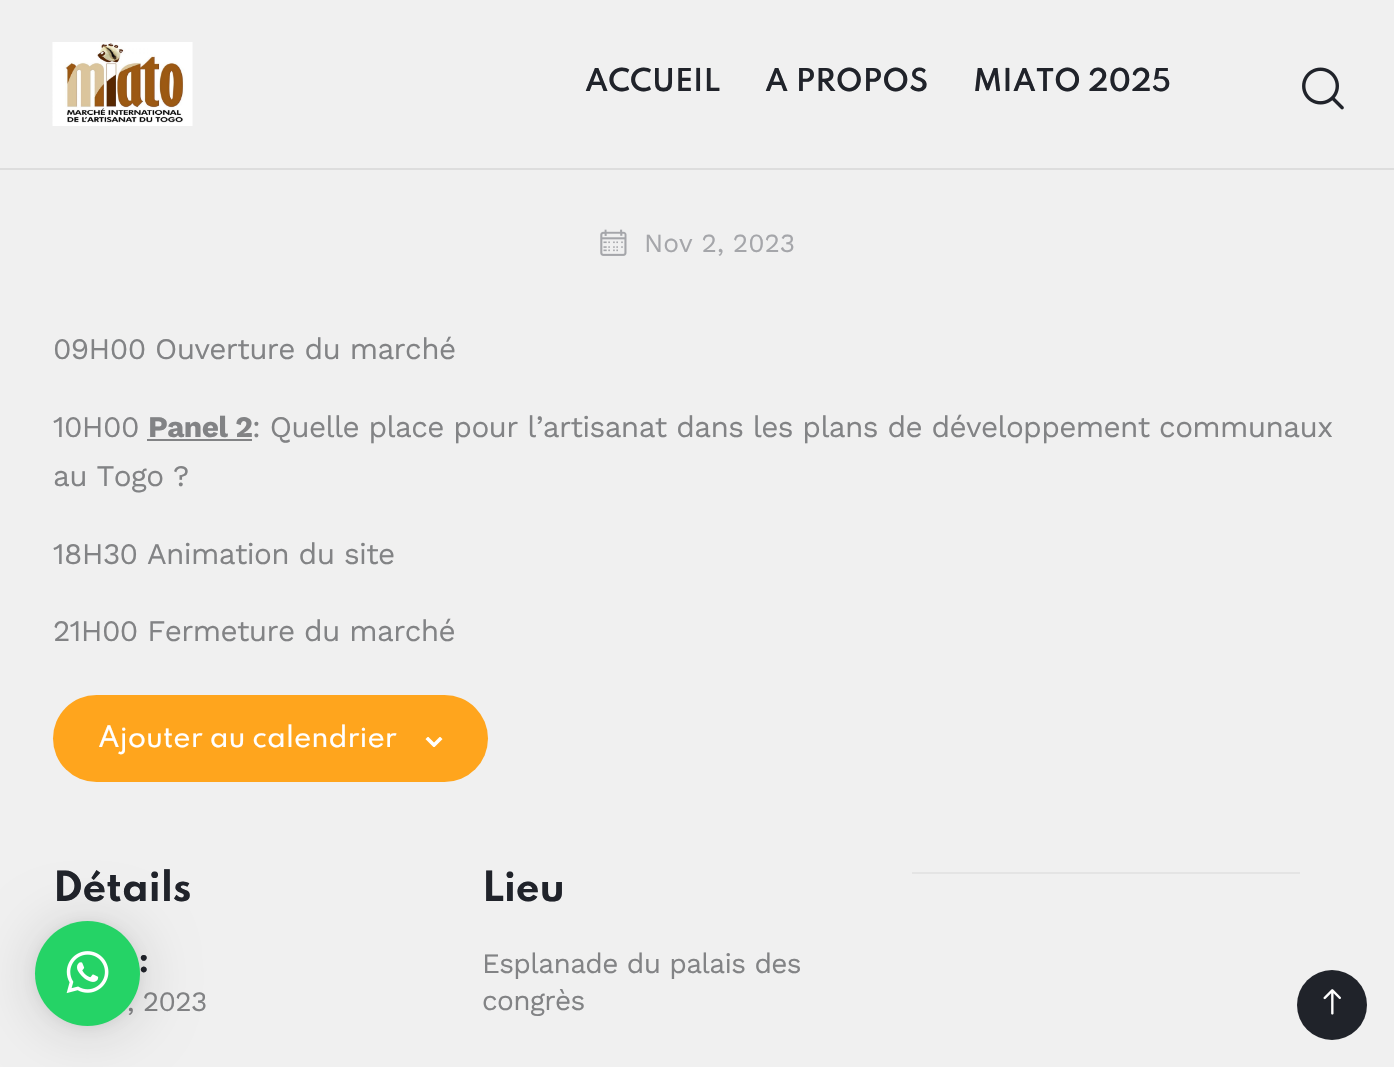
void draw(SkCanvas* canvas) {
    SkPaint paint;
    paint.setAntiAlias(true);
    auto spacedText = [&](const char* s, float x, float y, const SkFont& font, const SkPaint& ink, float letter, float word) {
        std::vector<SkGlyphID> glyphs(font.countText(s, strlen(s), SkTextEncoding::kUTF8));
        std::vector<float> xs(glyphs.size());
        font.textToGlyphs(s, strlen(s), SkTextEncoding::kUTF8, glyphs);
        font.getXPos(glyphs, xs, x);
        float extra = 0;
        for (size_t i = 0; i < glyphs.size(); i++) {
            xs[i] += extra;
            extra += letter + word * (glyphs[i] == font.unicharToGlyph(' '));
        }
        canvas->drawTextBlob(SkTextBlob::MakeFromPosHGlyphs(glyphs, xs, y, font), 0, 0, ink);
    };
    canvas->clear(0xFFF0F0F0);
    paint.setColor(0xFFDDDDDD);
    canvas->drawRect(SkRect::MakeXYWH(0, 168, 1394, 2), paint);
    canvas->drawImageRect(SkImages::DeferredFromEncodedData(SkData::MakeFromFileName("img1.png")), SkRect::MakeXYWH(52, 42, 141, 84), SkSamplingOptions());
    SkFont font1(fontMgr->matchFamilyStyle("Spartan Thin", SkFontStyle(600, SkFontStyle::kNormal_Width, SkFontStyle::kUpright_Slant)), 28);
    font1.setSubpixel(true);
    paint.setColor(0xFF20232A);
    canvas->drawString("ACCUEIL", 585, 91, font1, paint);
    canvas->drawString("A PROPOS", 765, 91, font1, paint);
    canvas->drawString("MIATO 2025", 973, 91, font1, paint);
    canvas->drawImageRect(SkImages::DeferredFromEncodedData(SkData::MakeFromFileName("img2.png")), SkRect::MakeXYWH(1302, 67, 42, 43), SkSamplingOptions());
    canvas->drawImageRect(SkImages::DeferredFromEncodedData(SkData::MakeFromFileName("img3.png")), SkRect::MakeXYWH(600, 229, 27, 27), SkSamplingOptions());
    SkFont font2(fontMgr->matchFamilyStyle("Work Sans", SkFontStyle::Normal()), 26.25f);
    font2.setSubpixel(true);
    paint.setColor(0xFFA5A6AA);
    canvas->drawString("Nov 2, 2023", 644, 252, font2, paint);
    SkFont font3(fontMgr->matchFamilyStyle("Work Sans", SkFontStyle::Normal()), 29.75f);
    font3.setSubpixel(true);
    paint.setColor(0xFF828385);
    spacedText("09H00 Ouverture du marché", 53, 359, font3, paint, -0.63f, 0);
    spacedText("10H00", 53, 437, font3, paint, -0.63f, 0);
    SkFont font4(fontMgr->matchFamilyStyle("Work Sans", SkFontStyle::Bold()), 29.75f);
    font4.setSubpixel(true);
    spacedText("Panel 2", 148, 437, font4, paint, -0.63f, 0);
    canvas->drawRect(SkRect::MakeXYWH(147, 439, 105, 2), paint);
    spacedText(": Quelle place pour l’artisanat dans les plans de développement communaux", 252, 437, font3, paint, -0.63f, 0);
    spacedText("au Togo ?", 53, 486, font3, paint, -0.63f, 0);
    spacedText("18H30 Animation du site", 53, 564, font3, paint, -0.63f, 0);
    spacedText("21H00 Fermeture du marché", 53, 641, font3, paint, -0.63f, 0);
    paint.setColor(0xFFFFA51D);
    canvas->drawRoundRect(SkRect::MakeXYWH(53, 695, 435, 87), 43.5f, 43.5f, paint);
    SkFont font5(fontMgr->matchFamilyStyle("Spartan Thin", SkFontStyle(500, SkFontStyle::kNormal_Width, SkFontStyle::kUpright_Slant)), 26.25f);
    font5.setSubpixel(true);
    paint.setColor(0xFFFFFFFF);
    canvas->drawString("Ajouter au calendrier", 98, 747, font5, paint);
    canvas->drawImageRect(SkImages::DeferredFromEncodedData(SkData::MakeFromFileName("img4.png")), SkRect::MakeXYWH(425, 737, 18, 10), SkSamplingOptions());
    SkFont font6(fontMgr->matchFamilyStyle("Spartan Thin", SkFontStyle::Bold()), 37);
    font6.setSubpixel(true);
    paint.setColor(0xFF20232A);
    spacedText("Détails", 53, 901, font6, paint, -0.25f, 0);
    SkFont font7(fontMgr->matchFamilyStyle("Spartan Thin", SkFontStyle::Bold()), 29.75f);
    font7.setSubpixel(true);
    canvas->drawString(":", 138, 972, font7, paint);
    SkFont font8(fontMgr->matchFamilyStyle("Work Sans", SkFontStyle::Normal()), 28);
    font8.setSubpixel(true);
    paint.setColor(0xFF828385);
    spacedText(", 2023", 127, 1011, font8, paint, -0.63f, 0);
    paint.setColor(0xFF20232A);
    spacedText("Lieu", 482, 901, font6, paint, -0.25f, 0);
    paint.setColor(0xFF828385);
    spacedText("Esplanade du palais des", 482, 973, font8, paint, -0.63f, 0);
    spacedText("congrès", 482, 1010, font8, paint, -0.63f, 0);
    paint.setColor(0xFFE4E4E4);
    canvas->drawRect(SkRect::MakeXYWH(912, 872, 388, 2), paint);
    paint.setColor(0x29000000);
    paint.setMaskFilter(SkMaskFilter::MakeBlur(kNormal_SkBlurStyle, 28));
    canvas->drawRoundRect(SkRect::MakeXYWH(35, 924, 105, 105), 52.5f, 52.5f, paint);
    paint.setMaskFilter(nullptr);
    paint.setColor(0x0F000000);
    paint.setMaskFilter(SkMaskFilter::MakeBlur(kNormal_SkBlurStyle, 5));
    canvas->drawRoundRect(SkRect::MakeXYWH(35, 922, 105, 105), 52.5f, 52.5f, paint);
    paint.setMaskFilter(nullptr);
    paint.setColor(0xFF25D366);
    canvas->drawCircle(87.5f, 973.5f, 52.5f, paint);
    canvas->drawImageRect(SkImages::DeferredFromEncodedData(SkData::MakeFromFileName("img5.png")), SkRect::MakeXYWH(66, 951, 43, 43), SkSamplingOptions());
    paint.setColor(0xFF20232A);
    canvas->drawCircle(1332, 1005, 35, paint);
    canvas->drawImageRect(SkImages::DeferredFromEncodedData(SkData::MakeFromFileName("img6.png")), SkRect::MakeXYWH(1323, 989, 18, 26), SkSamplingOptions());
}
